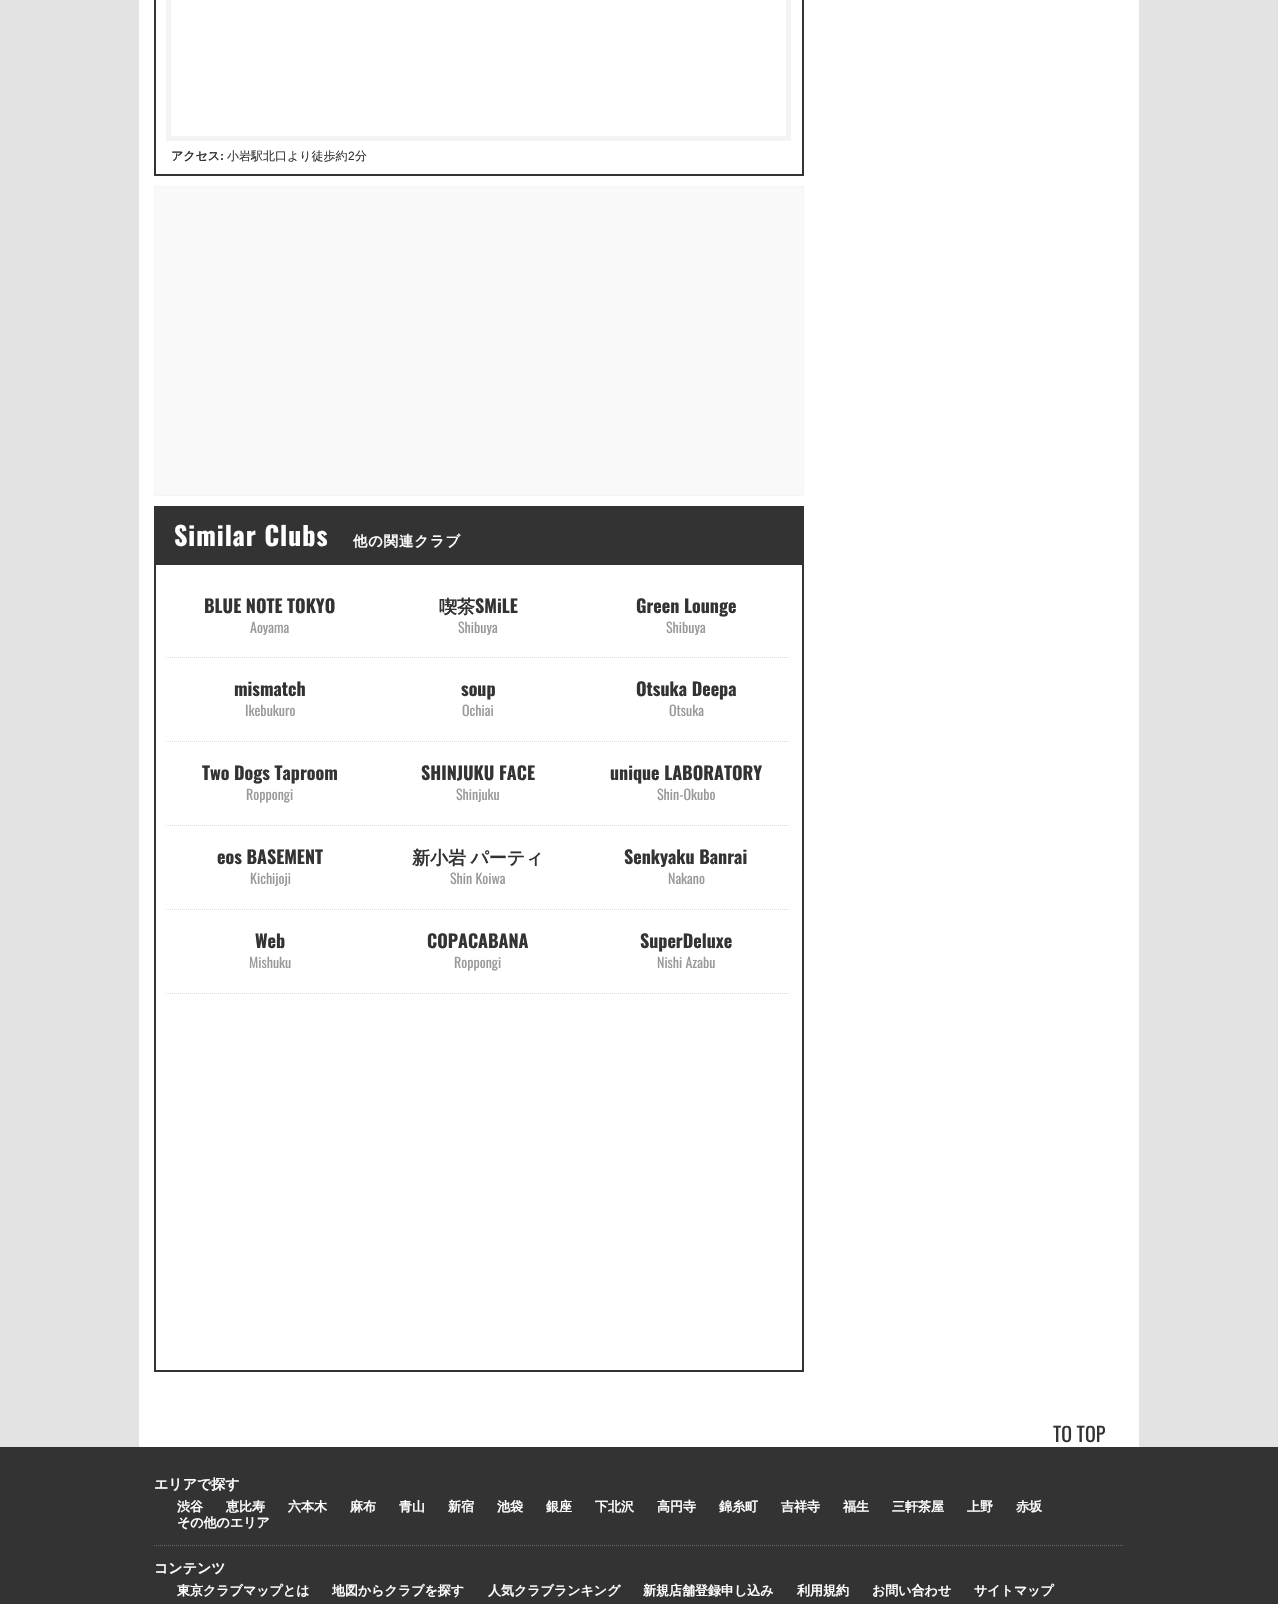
void draw(SkCanvas* canvas) {
    SkPaint paint;
    paint.setAntiAlias(true);
    auto spacedText = [&](const char* s, float x, float y, const SkFont& font, const SkPaint& ink, float letter, float word) {
        std::vector<SkGlyphID> glyphs(font.countText(s, strlen(s), SkTextEncoding::kUTF8));
        std::vector<float> xs(glyphs.size());
        font.textToGlyphs(s, strlen(s), SkTextEncoding::kUTF8, glyphs);
        font.getXPos(glyphs, xs, x);
        float extra = 0;
        for (size_t i = 0; i < glyphs.size(); i++) {
            xs[i] += extra;
            extra += letter + word * (glyphs[i] == font.unicharToGlyph(' '));
        }
        canvas->drawTextBlob(SkTextBlob::MakeFromPosHGlyphs(glyphs, xs, y, font), 0, 0, ink);
    };
    canvas->clear(0xFFE3E3E3);
    paint.setColor(0xFFFFFFFF);
    canvas->drawRect(SkRect::MakeXYWH(139, 0, 1000, 1447), paint);
    paint.setColor(0xFF333333);
    canvas->drawRect(SkRect::MakeXYWH(802, 0, 2, 176), paint);
    canvas->drawRect(SkRect::MakeXYWH(154, 174, 650, 2), paint);
    canvas->drawRect(SkRect::MakeXYWH(154, 0, 2, 176), paint);
    paint.setStyle(SkPaint::kStroke_Style);
    paint.setStrokeWidth(5);
    paint.setColor(0xFFF4F4F4);
    canvas->drawRect(SkRect::MakeXYWH(168.5f, -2.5f, 620, 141), paint);
    SkFont font1(fontMgr->matchFamilyStyle("WenQuanYi Zen Hei", SkFontStyle::Bold()), 12);
    font1.setSubpixel(true);
    paint.setStyle(SkPaint::kFill_Style);
    paint.setColor(0xFF333333);
    canvas->drawString("アクセス", 171, 160, font1, paint);
    SkFont font2(fontMgr->matchFamilyStyle("Liberation Sans", SkFontStyle::Bold()), 12);
    font2.setSubpixel(true);
    canvas->drawString(":", 220, 160, font2, paint);
    SkFont font3(fontMgr->matchFamilyStyle("WenQuanYi Zen Hei", SkFontStyle(500, SkFontStyle::kNormal_Width, SkFontStyle::kUpright_Slant)), 12);
    font3.setSubpixel(true);
    canvas->drawString("小岩駅北口より徒歩約", 227, 160, font3, paint);
    SkFont font4(fontMgr->matchFamilyStyle("Liberation Sans", SkFontStyle::Normal()), 12);
    font4.setSubpixel(true);
    canvas->drawString("2", 348, 160, font4, paint);
    canvas->drawString("分", 355, 160, font3, paint);
    paint.setColor(0xFFF9F9F9);
    canvas->drawRect(SkRect::MakeXYWH(154.5f, 186.5f, 649, 309), paint);
    paint.setStyle(SkPaint::kStroke_Style);
    paint.setStrokeWidth(1);
    paint.setColor(0xFFF4F4F4);
    canvas->drawRect(SkRect::MakeXYWH(154.5f, 186.5f, 649, 309), paint);
    paint.setStyle(SkPaint::kFill_Style);
    paint.setColor(0xFF333333);
    canvas->drawRect(SkRect::MakeXYWH(154, 506, 650, 59), paint);
    SkFont font5(fontMgr->matchFamilyStyle("Oswald", SkFontStyle::Bold()), 26);
    font5.setSubpixel(true);
    paint.setColor(0xFFFFFFFF);
    spacedText("Similar Clubs", 174, 546, font5, paint, 1, 0);
    SkFont font6(fontMgr->matchFamilyStyle("WenQuanYi Zen Hei", SkFontStyle::Bold()), 14.25f);
    font6.setSubpixel(true);
    spacedText("他の関連クラブ", 353, 546, font6, paint, 1, 0);
    paint.setColor(0xFF333333);
    canvas->drawRect(SkRect::MakeXYWH(802, 565, 2, 807), paint);
    canvas->drawRect(SkRect::MakeXYWH(154, 1370, 650, 2), paint);
    canvas->drawRect(SkRect::MakeXYWH(154, 565, 2, 807), paint);
    paint.setStyle(SkPaint::kStroke_Style);
    paint.setColor(0xFFDDDDDD);
    paint.setPathEffect(SkDashPathEffect::Make({{1, 1}}, 0));
    canvas->drawPath(SkPathBuilder().moveTo(166, 657.5f).lineTo(374, 657.5f).detach(), paint);
    paint.setPathEffect(nullptr);
    SkFont font7(fontMgr->matchFamilyStyle("Oswald", SkFontStyle::Bold()), 18);
    font7.setSubpixel(true);
    paint.setStyle(SkPaint::kFill_Style);
    paint.setColor(0xFF333333);
    canvas->drawString("BLUE NOTE TOKYO", 204, 613, font7, paint);
    SkFont font8(fontMgr->matchFamilyStyle("Oswald", SkFontStyle::Normal()), 14);
    font8.setSubpixel(true);
    paint.setColor(0xFF999999);
    canvas->drawString("Aoyama", 250, 633, font8, paint);
    paint.setStyle(SkPaint::kStroke_Style);
    paint.setColor(0xFFDDDDDD);
    paint.setPathEffect(SkDashPathEffect::Make({{1, 1}}, 0));
    canvas->drawPath(SkPathBuilder().moveTo(374, 657.5f).lineTo(582, 657.5f).detach(), paint);
    paint.setPathEffect(nullptr);
    SkFont font9(fontMgr->matchFamilyStyle("WenQuanYi Zen Hei", SkFontStyle::Bold()), 18);
    font9.setSubpixel(true);
    paint.setStyle(SkPaint::kFill_Style);
    paint.setColor(0xFF333333);
    canvas->drawString("喫茶", 439, 613, font9, paint);
    canvas->drawString("SMiLE", 475, 613, font7, paint);
    paint.setColor(0xFF999999);
    canvas->drawString("Shibuya", 458, 633, font8, paint);
    paint.setStyle(SkPaint::kStroke_Style);
    paint.setColor(0xFFDDDDDD);
    paint.setPathEffect(SkDashPathEffect::Make({{1, 1}}, 0));
    canvas->drawPath(SkPathBuilder().moveTo(582, 657.5f).lineTo(790, 657.5f).detach(), paint);
    paint.setPathEffect(nullptr);
    paint.setStyle(SkPaint::kFill_Style);
    paint.setColor(0xFF333333);
    canvas->drawString("Green Lounge", 636, 613, font7, paint);
    paint.setColor(0xFF999999);
    canvas->drawString("Shibuya", 666, 633, font8, paint);
    paint.setStyle(SkPaint::kStroke_Style);
    paint.setColor(0xFFDDDDDD);
    paint.setPathEffect(SkDashPathEffect::Make({{1, 1}}, 0));
    canvas->drawPath(SkPathBuilder().moveTo(166, 741.5f).lineTo(374, 741.5f).detach(), paint);
    paint.setPathEffect(nullptr);
    paint.setStyle(SkPaint::kFill_Style);
    paint.setColor(0xFF333333);
    canvas->drawString("mismatch", 234, 696, font7, paint);
    paint.setColor(0xFF999999);
    canvas->drawString("Ikebukuro", 245, 716, font8, paint);
    paint.setStyle(SkPaint::kStroke_Style);
    paint.setColor(0xFFDDDDDD);
    paint.setPathEffect(SkDashPathEffect::Make({{1, 1}}, 0));
    canvas->drawPath(SkPathBuilder().moveTo(374, 741.5f).lineTo(582, 741.5f).detach(), paint);
    paint.setPathEffect(nullptr);
    paint.setStyle(SkPaint::kFill_Style);
    paint.setColor(0xFF333333);
    canvas->drawString("soup", 461, 696, font7, paint);
    paint.setColor(0xFF999999);
    canvas->drawString("Ochiai", 462, 716, font8, paint);
    paint.setStyle(SkPaint::kStroke_Style);
    paint.setColor(0xFFDDDDDD);
    paint.setPathEffect(SkDashPathEffect::Make({{1, 1}}, 0));
    canvas->drawPath(SkPathBuilder().moveTo(582, 741.5f).lineTo(790, 741.5f).detach(), paint);
    paint.setPathEffect(nullptr);
    paint.setStyle(SkPaint::kFill_Style);
    paint.setColor(0xFF333333);
    canvas->drawString("Otsuka Deepa", 636, 696, font7, paint);
    paint.setColor(0xFF999999);
    canvas->drawString("Otsuka", 669, 716, font8, paint);
    paint.setStyle(SkPaint::kStroke_Style);
    paint.setColor(0xFFDDDDDD);
    paint.setPathEffect(SkDashPathEffect::Make({{1, 1}}, 0));
    canvas->drawPath(SkPathBuilder().moveTo(166, 825.5f).lineTo(374, 825.5f).detach(), paint);
    paint.setPathEffect(nullptr);
    paint.setStyle(SkPaint::kFill_Style);
    paint.setColor(0xFF333333);
    canvas->drawString("Two Dogs Taproom", 202, 780, font7, paint);
    paint.setColor(0xFF999999);
    canvas->drawString("Roppongi", 246, 800, font8, paint);
    paint.setStyle(SkPaint::kStroke_Style);
    paint.setColor(0xFFDDDDDD);
    paint.setPathEffect(SkDashPathEffect::Make({{1, 1}}, 0));
    canvas->drawPath(SkPathBuilder().moveTo(374, 825.5f).lineTo(582, 825.5f).detach(), paint);
    paint.setPathEffect(nullptr);
    paint.setStyle(SkPaint::kFill_Style);
    paint.setColor(0xFF333333);
    canvas->drawString("SHINJUKU FACE", 421, 780, font7, paint);
    paint.setColor(0xFF999999);
    canvas->drawString("Shinjuku", 456, 800, font8, paint);
    paint.setStyle(SkPaint::kStroke_Style);
    paint.setColor(0xFFDDDDDD);
    paint.setPathEffect(SkDashPathEffect::Make({{1, 1}}, 0));
    canvas->drawPath(SkPathBuilder().moveTo(582, 825.5f).lineTo(790, 825.5f).detach(), paint);
    paint.setPathEffect(nullptr);
    paint.setStyle(SkPaint::kFill_Style);
    paint.setColor(0xFF333333);
    canvas->drawString("unique LABORATORY", 610, 780, font7, paint);
    paint.setColor(0xFF999999);
    canvas->drawString("Shin-Okubo", 657, 800, font8, paint);
    paint.setStyle(SkPaint::kStroke_Style);
    paint.setColor(0xFFDDDDDD);
    paint.setPathEffect(SkDashPathEffect::Make({{1, 1}}, 0));
    canvas->drawPath(SkPathBuilder().moveTo(166, 909.5f).lineTo(374, 909.5f).detach(), paint);
    paint.setPathEffect(nullptr);
    paint.setStyle(SkPaint::kFill_Style);
    paint.setColor(0xFF333333);
    canvas->drawString("eos BASEMENT", 217, 864, font7, paint);
    paint.setColor(0xFF999999);
    canvas->drawString("Kichijoji", 250, 884, font8, paint);
    paint.setStyle(SkPaint::kStroke_Style);
    paint.setColor(0xFFDDDDDD);
    paint.setPathEffect(SkDashPathEffect::Make({{1, 1}}, 0));
    canvas->drawPath(SkPathBuilder().moveTo(374, 909.5f).lineTo(582, 909.5f).detach(), paint);
    paint.setPathEffect(nullptr);
    paint.setStyle(SkPaint::kFill_Style);
    paint.setColor(0xFF333333);
    spacedText("新小岩 パーティ", 412, 864, font9, paint, 0, -1);
    paint.setColor(0xFF999999);
    canvas->drawString("Shin Koiwa", 450, 884, font8, paint);
    paint.setStyle(SkPaint::kStroke_Style);
    paint.setColor(0xFFDDDDDD);
    paint.setPathEffect(SkDashPathEffect::Make({{1, 1}}, 0));
    canvas->drawPath(SkPathBuilder().moveTo(582, 909.5f).lineTo(790, 909.5f).detach(), paint);
    paint.setPathEffect(nullptr);
    paint.setStyle(SkPaint::kFill_Style);
    paint.setColor(0xFF333333);
    canvas->drawString("Senkyaku Banrai", 624, 864, font7, paint);
    paint.setColor(0xFF999999);
    canvas->drawString("Nakano", 668, 884, font8, paint);
    paint.setStyle(SkPaint::kStroke_Style);
    paint.setColor(0xFFDDDDDD);
    paint.setPathEffect(SkDashPathEffect::Make({{1, 1}}, 0));
    canvas->drawPath(SkPathBuilder().moveTo(166, 993.5f).lineTo(374, 993.5f).detach(), paint);
    paint.setPathEffect(nullptr);
    paint.setStyle(SkPaint::kFill_Style);
    paint.setColor(0xFF333333);
    canvas->drawString("Web", 255, 948, font7, paint);
    paint.setColor(0xFF999999);
    canvas->drawString("Mishuku", 249, 968, font8, paint);
    paint.setStyle(SkPaint::kStroke_Style);
    paint.setColor(0xFFDDDDDD);
    paint.setPathEffect(SkDashPathEffect::Make({{1, 1}}, 0));
    canvas->drawPath(SkPathBuilder().moveTo(374, 993.5f).lineTo(582, 993.5f).detach(), paint);
    paint.setPathEffect(nullptr);
    paint.setStyle(SkPaint::kFill_Style);
    paint.setColor(0xFF333333);
    canvas->drawString("COPACABANA", 427, 948, font7, paint);
    paint.setColor(0xFF999999);
    canvas->drawString("Roppongi", 454, 968, font8, paint);
    paint.setStyle(SkPaint::kStroke_Style);
    paint.setColor(0xFFDDDDDD);
    paint.setPathEffect(SkDashPathEffect::Make({{1, 1}}, 0));
    canvas->drawPath(SkPathBuilder().moveTo(582, 993.5f).lineTo(790, 993.5f).detach(), paint);
    paint.setPathEffect(nullptr);
    paint.setStyle(SkPaint::kFill_Style);
    paint.setColor(0xFF333333);
    canvas->drawString("SuperDeluxe", 640, 948, font7, paint);
    paint.setColor(0xFF999999);
    canvas->drawString("Nishi Azabu", 657, 968, font8, paint);
    SkFont font10(fontMgr->matchFamilyStyle("Oswald", SkFontStyle::Normal()), 20);
    font10.setSubpixel(true);
    paint.setColor(0xFF333333);
    canvas->drawString("TO TOP", 1053, 1442, font10, paint);
    canvas->drawRect(SkRect::MakeXYWH(0, 1447, 1278, 157), paint);
    SkFont font11(fontMgr->matchFamilyStyle("WenQuanYi Zen Hei", SkFontStyle::Bold()), 14);
    font11.setSubpixel(true);
    paint.setColor(0xFFFFFFFF);
    canvas->drawString("エリアで探す", 154, 1489, font11, paint);
    paint.setStyle(SkPaint::kStroke_Style);
    paint.setColor(0xFF666666);
    paint.setPathEffect(SkDashPathEffect::Make({{1, 1}}, 0));
    canvas->drawPath(SkPathBuilder().moveTo(154, 1545.5f).lineTo(1124, 1545.5f).detach(), paint);
    paint.setPathEffect(nullptr);
    SkFont font12(fontMgr->matchFamilyStyle("WenQuanYi Zen Hei", SkFontStyle::Bold()), 13);
    font12.setSubpixel(true);
    paint.setStyle(SkPaint::kFill_Style);
    paint.setColor(0xFFFFFFFF);
    canvas->drawString("渋谷", 177, 1511, font12, paint);
    canvas->drawString("恵比寿", 226, 1511, font12, paint);
    canvas->drawString("六本木", 288, 1511, font12, paint);
    canvas->drawString("麻布", 350, 1511, font12, paint);
    canvas->drawString("青山", 399, 1511, font12, paint);
    canvas->drawString("新宿", 448, 1511, font12, paint);
    canvas->drawString("池袋", 497, 1511, font12, paint);
    canvas->drawString("銀座", 546, 1511, font12, paint);
    canvas->drawString("下北沢", 595, 1511, font12, paint);
    canvas->drawString("高円寺", 657, 1511, font12, paint);
    canvas->drawString("錦糸町", 719, 1511, font12, paint);
    canvas->drawString("吉祥寺", 781, 1511, font12, paint);
    canvas->drawString("福生", 843, 1511, font12, paint);
    canvas->drawString("三軒茶屋", 892, 1511, font12, paint);
    canvas->drawString("上野", 967, 1511, font12, paint);
    canvas->drawString("赤坂", 1016, 1511, font12, paint);
    canvas->drawString("その他のエリア", 177, 1527, font12, paint);
    canvas->drawString("コンテンツ", 154, 1573, font11, paint);
    canvas->drawString("東京クラブマップとは", 177, 1595, font12, paint);
    canvas->drawString("地図からクラブを探す", 332, 1595, font12, paint);
    canvas->drawString("人気クラブランキング", 488, 1595, font12, paint);
    canvas->drawString("新規店舗登録申し込み", 643, 1595, font12, paint);
    canvas->drawString("利用規約", 797, 1595, font12, paint);
    canvas->drawString("お問い合わせ", 872, 1595, font12, paint);
    canvas->drawString("サイトマップ", 974, 1595, font12, paint);
}
